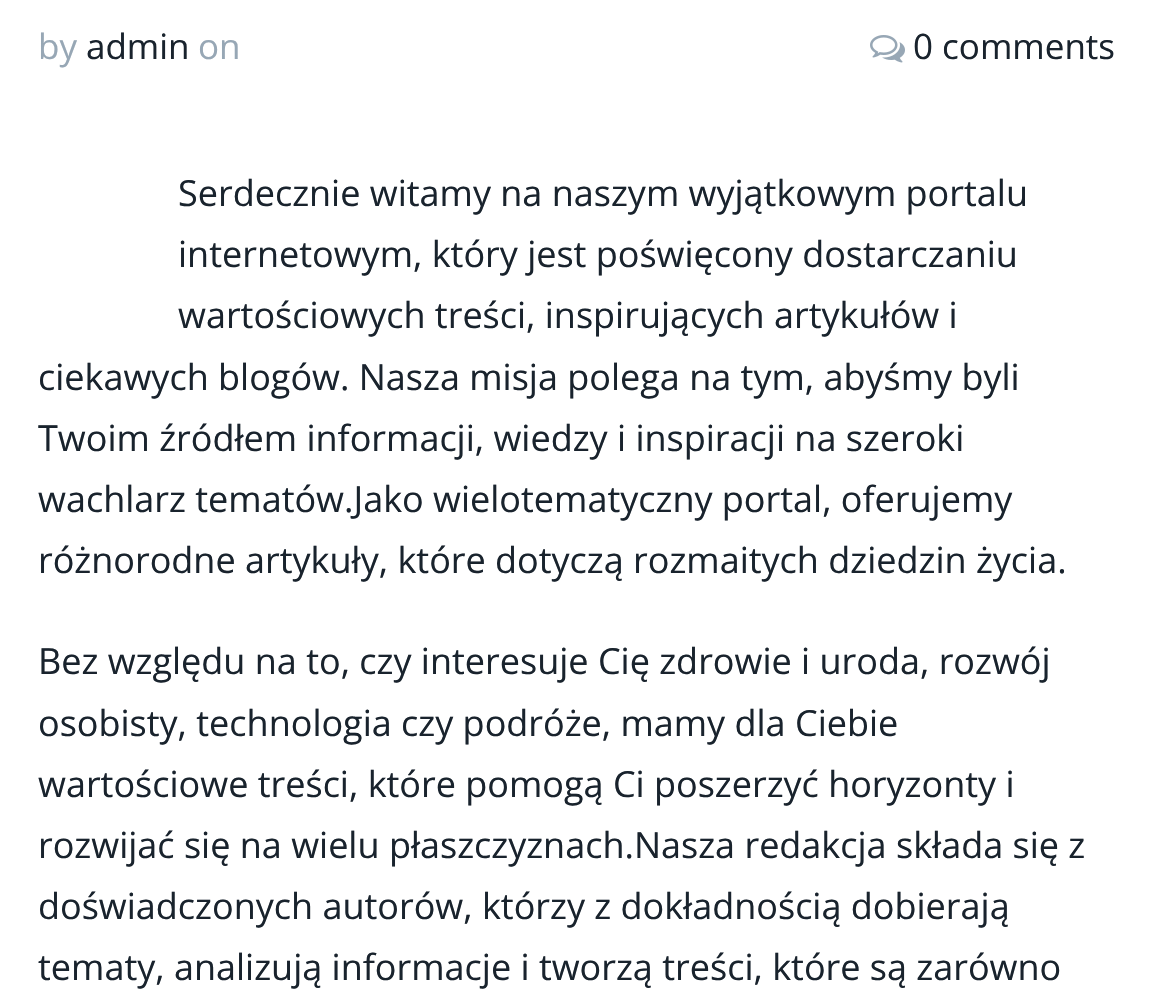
void draw(SkCanvas* canvas) {
    SkPaint paint;
    paint.setAntiAlias(true);
    canvas->clear(0xFFFFFFFF);
    SkFont font1(fontMgr->matchFamilyStyle("Open Sans", SkFontStyle::Normal()), 35);
    font1.setSubpixel(true);
    paint.setColor(0xFF97A7B5);
    canvas->drawString("by", 38, 59, font1, paint);
    paint.setColor(0xFF19232D);
    canvas->drawString("admin", 86, 59, font1, paint);
    paint.setColor(0xFF97A7B5);
    canvas->drawString("on", 198, 59, font1, paint);
    canvas->drawImageRect(SkImages::DeferredFromEncodedData(SkData::MakeFromFileName("img1.png")), SkRect::MakeXYWH(870, 35, 35, 28), SkSamplingOptions());
    paint.setColor(0xFF19232D);
    canvas->drawString("0 comments", 913, 59, font1, paint);
    SkFont font2(fontMgr->matchFamilyStyle("Open Sans", SkFontStyle::Normal()), 36);
    font2.setSubpixel(true);
    canvas->drawString("Serdecznie witamy na naszym wyjątkowym portalu", 178, 206, font2, paint);
    canvas->drawString("internetowym, który jest poświęcony dostarczaniu", 178, 267, font2, paint);
    canvas->drawString("wartościowych treści, inspirujących artykułów i", 178, 328, font2, paint);
    canvas->drawString("ciekawych blogów. Nasza misja polega na tym, abyśmy byli", 38, 390, font2, paint);
    canvas->drawString("Twoim źródłem informacji, wiedzy i inspiracji na szeroki", 38, 451, font2, paint);
    canvas->drawString("wachlarz tematów.Jako wielotematyczny portal, oferujemy", 38, 512, font2, paint);
    canvas->drawString("różnorodne artykuły, które dotyczą rozmaitych dziedzin życia.", 38, 573, font2, paint);
    canvas->drawString("Bez względu na to, czy interesuje Cię zdrowie i uroda, rozwój", 38, 674, font2, paint);
    canvas->drawString("osobisty, technologia czy podróże, mamy dla Ciebie", 38, 736, font2, paint);
    canvas->drawString("wartościowe treści, które pomogą Ci poszerzyć horyzonty i", 38, 797, font2, paint);
    canvas->drawString("rozwijać się na wielu płaszczyznach.Nasza redakcja składa się z", 38, 858, font2, paint);
    canvas->drawString("doświadczonych autorów, którzy z dokładnością dobierają", 38, 919, font2, paint);
    canvas->drawString("tematy, analizują informacje i tworzą treści, które są zarówno", 38, 980, font2, paint);
}
